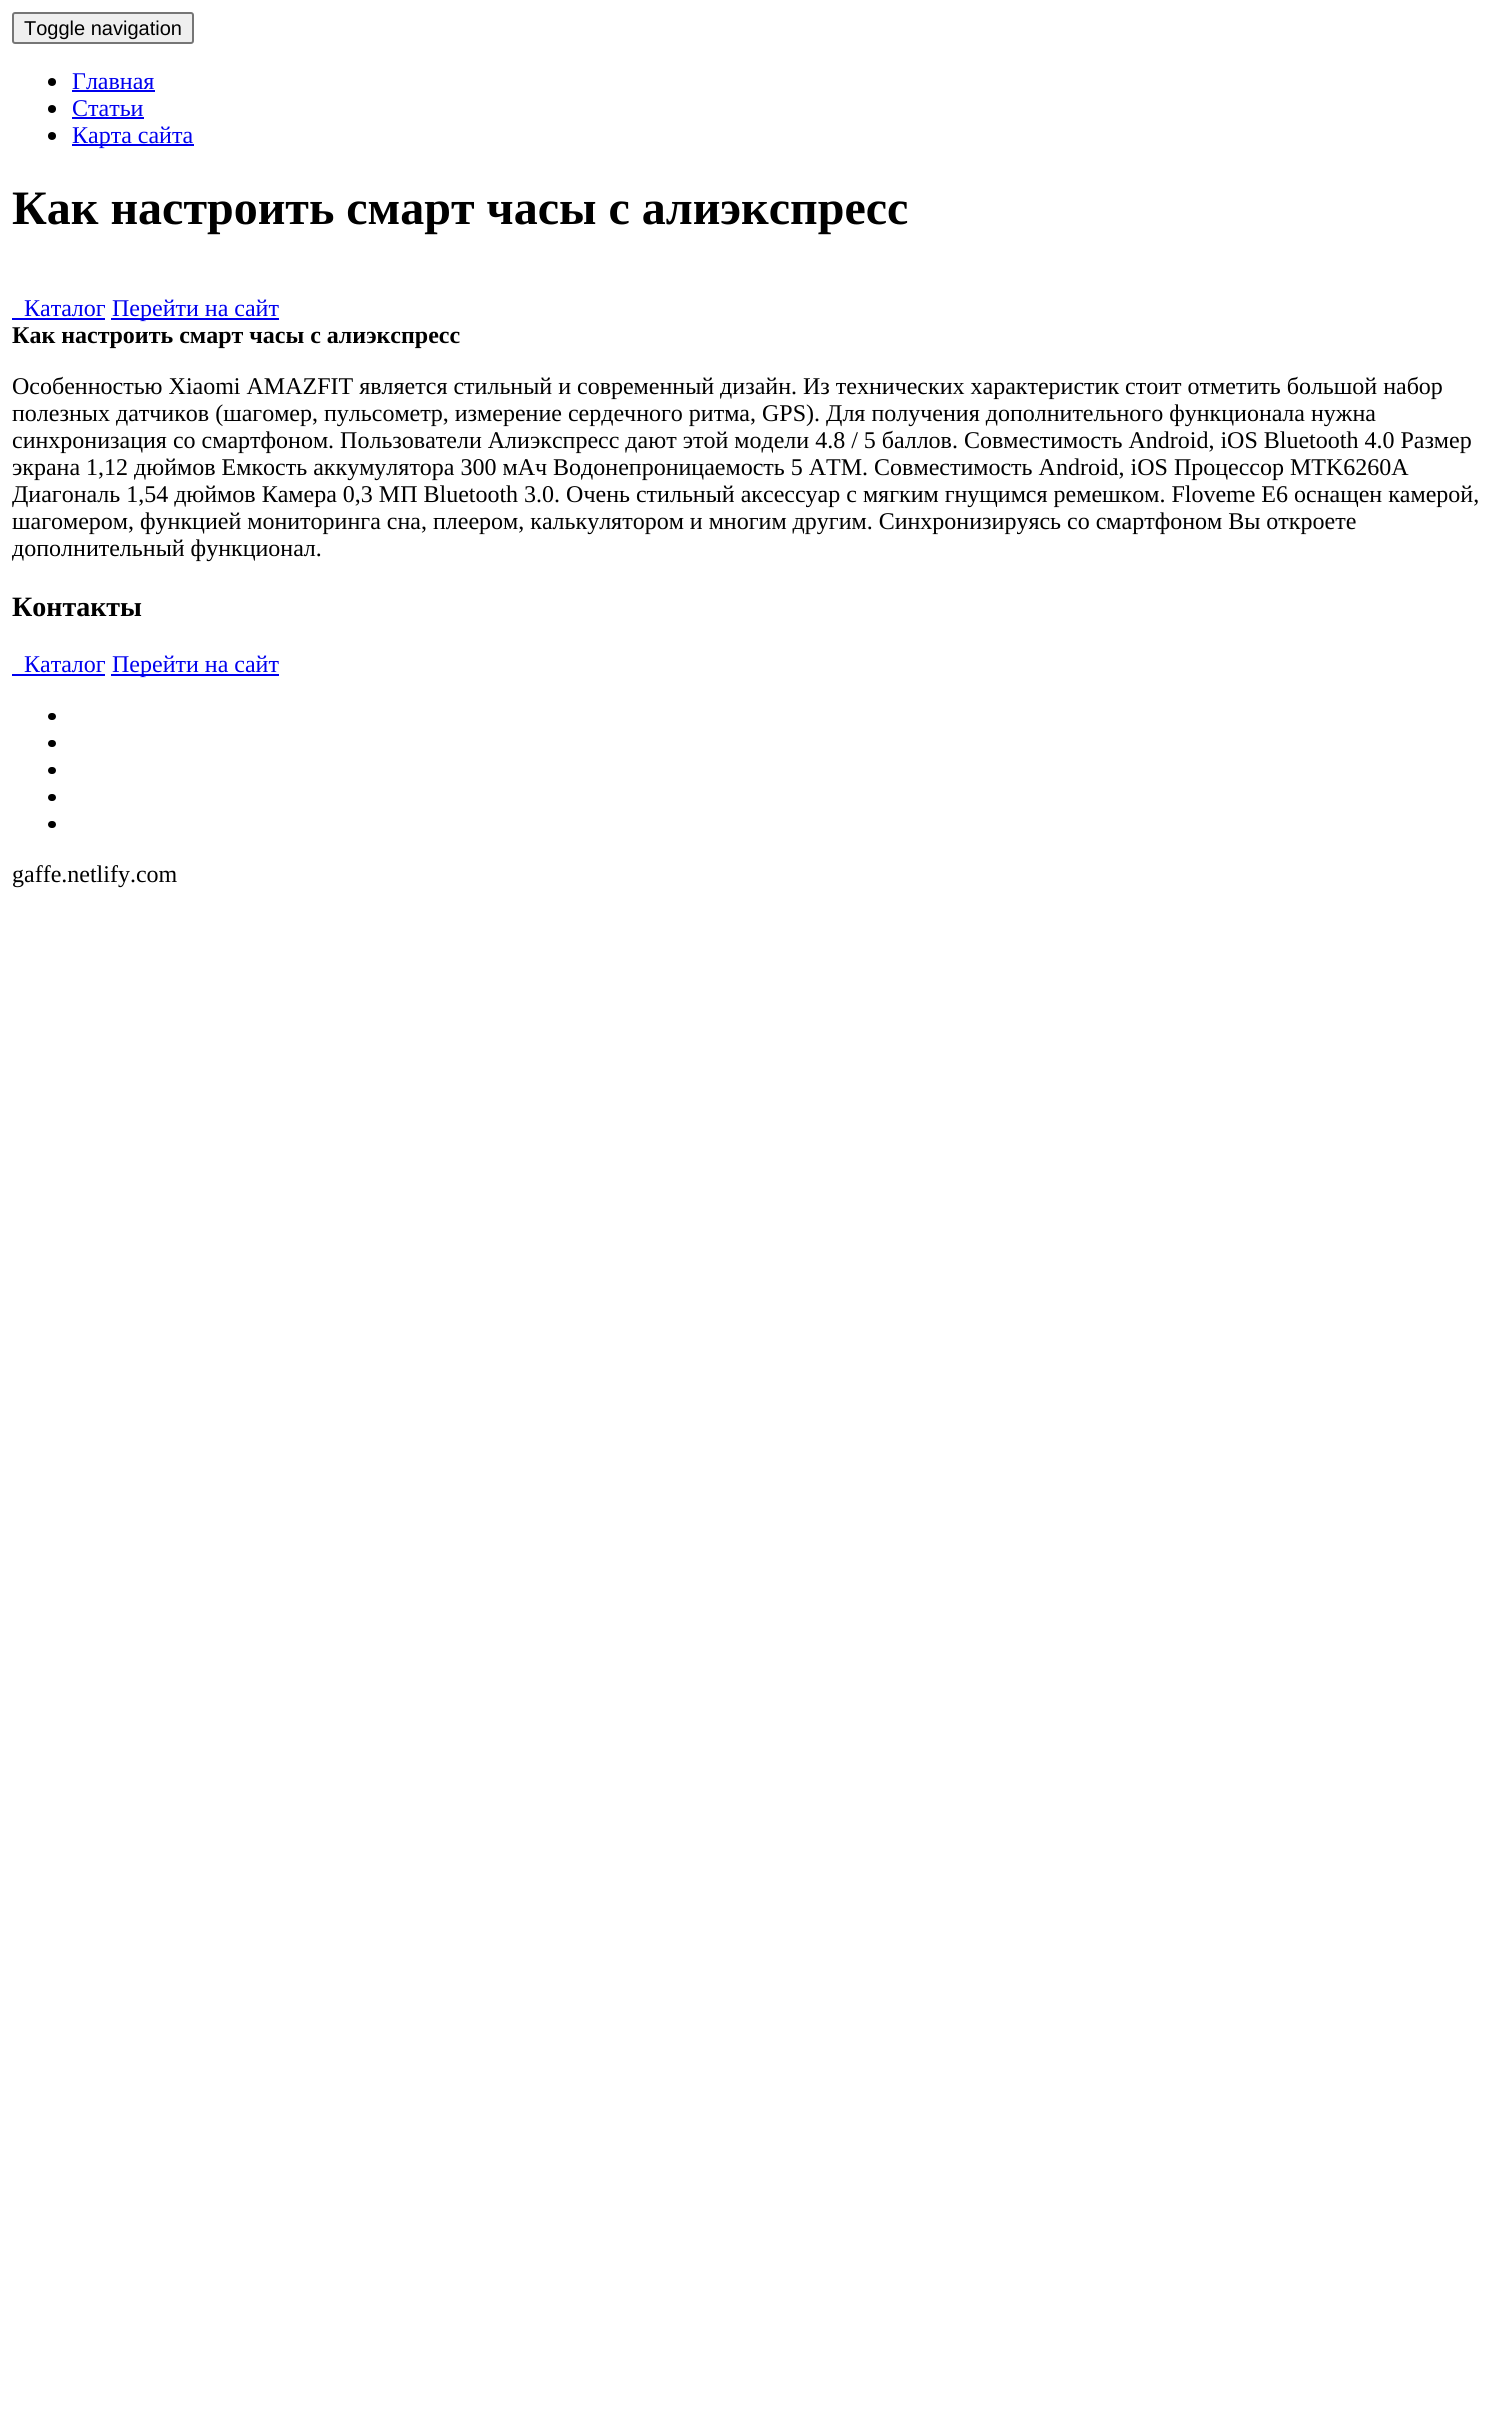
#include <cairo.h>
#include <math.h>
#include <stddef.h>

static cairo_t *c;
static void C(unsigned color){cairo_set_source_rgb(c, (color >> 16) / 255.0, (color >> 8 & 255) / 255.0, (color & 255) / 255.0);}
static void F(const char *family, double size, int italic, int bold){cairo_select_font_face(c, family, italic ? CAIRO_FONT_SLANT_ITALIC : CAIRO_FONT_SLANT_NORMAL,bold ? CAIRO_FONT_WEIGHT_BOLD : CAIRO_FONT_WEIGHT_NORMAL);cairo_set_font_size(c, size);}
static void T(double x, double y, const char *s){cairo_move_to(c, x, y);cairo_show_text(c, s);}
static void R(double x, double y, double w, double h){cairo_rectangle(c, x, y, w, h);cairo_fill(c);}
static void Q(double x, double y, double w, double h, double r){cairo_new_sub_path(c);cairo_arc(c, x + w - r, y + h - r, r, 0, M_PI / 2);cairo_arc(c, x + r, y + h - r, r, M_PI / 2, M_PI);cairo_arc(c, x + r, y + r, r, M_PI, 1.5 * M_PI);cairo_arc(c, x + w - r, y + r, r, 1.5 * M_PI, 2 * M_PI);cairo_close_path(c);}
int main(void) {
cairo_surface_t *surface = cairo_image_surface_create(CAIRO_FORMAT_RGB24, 1505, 2428);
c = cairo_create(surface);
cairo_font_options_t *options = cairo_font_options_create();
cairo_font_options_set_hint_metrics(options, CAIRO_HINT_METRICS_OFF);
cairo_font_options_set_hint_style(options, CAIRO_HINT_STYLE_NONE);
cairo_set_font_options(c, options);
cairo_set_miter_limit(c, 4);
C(0xffffff);
cairo_paint(c);
C(0xefefef);
Q(13,13,180,30,2);
cairo_fill_preserve(c);
C(0x767676);
cairo_stroke(c);
F("Liberation Sans",20,0,0);
C(0x000000);
T(24,35,"Toggle navigation");
cairo_new_path(c);
cairo_arc(c,52,82,4,0,2 * M_PI);
cairo_fill(c);
F("Liberation Serif",24,0,0);
C(0x0000ee);
T(72,89,"Главная");
R(72,90,83,2);
C(0x000000);
cairo_new_path(c);
cairo_arc(c,52,109,4,0,2 * M_PI);
cairo_fill(c);
C(0x0000ee);
T(72,116,"Статьи");
R(72,117,72,2);
C(0x000000);
cairo_new_path(c);
cairo_arc(c,52,136,4,0,2 * M_PI);
cairo_fill(c);
C(0x0000ee);
R(72,144,122,2);
T(72,143,"Карта сайта");
F("Liberation Serif",48,0,1);
C(0x000000);
T(12,224,"Как настроить смарт часы с алиэкспресс");
F("Liberation Serif",24,0,0);
C(0x0000ee);
T(24,316,"Каталог");
R(12,318,93,2);
R(111,318,168,2);
T(112,316,"Перейти на сайт");
F("Liberation Serif",24,0,1);
C(0x000000);
T(12,343,"Как настроить смарт часы с алиэкспресс");
F("Liberation Serif",24,0,0);
T(12,394,"Особенностью Xiaomi AMAZFIT является стильный и современный дизайн. Из технических характеристик стоит отметить большой набор");
T(12,421,"полезных датчиков (шагомер, пульсометр, измерение сердечного ритма, GPS). Для получения дополнительного функционала нужна");
T(12,448,"синхронизация со смартфоном. Пользователи Алиэкспресс дают этой модели 4.8 / 5 баллов. Совместимость Android, iOS Bluetooth 4.0 Размер");
T(12,475,"экрана 1,12 дюймов Емкость аккумулятора 300 мАч Водонепроницаемость 5 АТМ. Совместимость Android, iOS Процессор MTK6260A");
T(12,502,"Диагональ 1,54 дюймов Камера 0,3 МП Bluetooth 3.0. Очень стильный аксессуар с мягким гнущимся ремешком. Floveme E6 оснащен камерой,");
T(12,529,"шагомером, функцией мониторинга сна, плеером, калькулятором и многим другим. Синхронизируясь со смартфоном Вы откроете");
T(12,556,"дополнительный функционал.");
F("Liberation Serif",28,0,1);
T(12,616,"Контакты");
F("Liberation Serif",24,0,0);
C(0x0000ee);
T(24,672,"Каталог");
R(12,674,93,2);
R(111,674,168,2);
T(112,672,"Перейти на сайт");
C(0x000000);
Q(48,713,8,7,3.5);
cairo_fill(c);
Q(48,740,8,7,3.5);
cairo_fill(c);
Q(48,767,8,7,3.5);
cairo_fill(c);
Q(48,794,8,7,3.5);
cairo_fill(c);
Q(48,821,8,7,3.5);
cairo_fill(c);
T(12,882,"gaffe.netlify.com");
cairo_surface_write_to_png(surface, "o.png");
cairo_font_options_destroy(options);
cairo_destroy(c);
cairo_surface_destroy(surface);
return 0;
}
